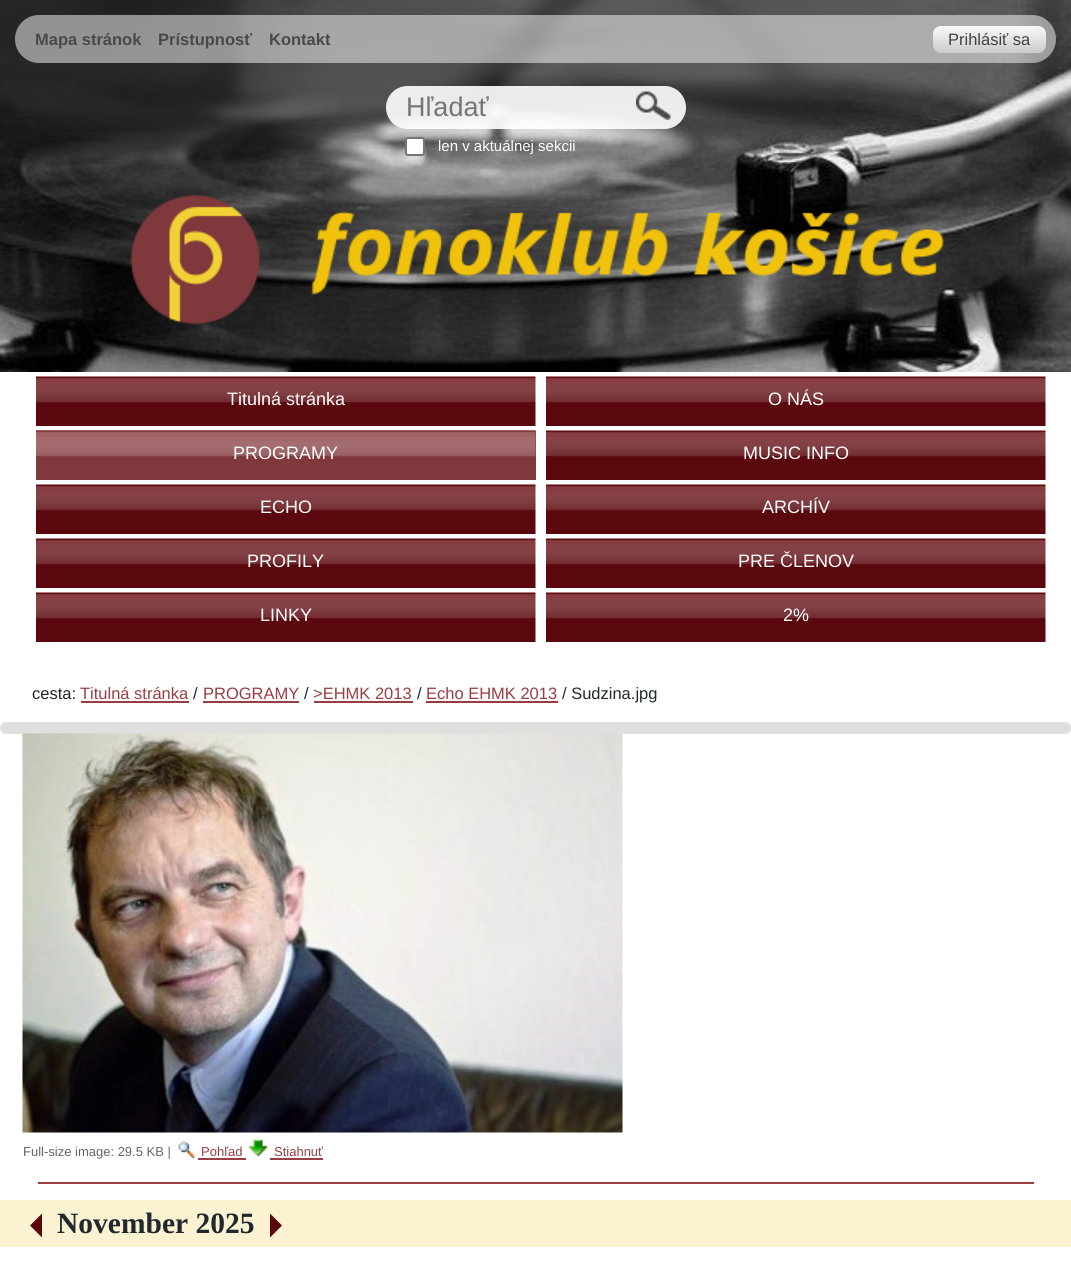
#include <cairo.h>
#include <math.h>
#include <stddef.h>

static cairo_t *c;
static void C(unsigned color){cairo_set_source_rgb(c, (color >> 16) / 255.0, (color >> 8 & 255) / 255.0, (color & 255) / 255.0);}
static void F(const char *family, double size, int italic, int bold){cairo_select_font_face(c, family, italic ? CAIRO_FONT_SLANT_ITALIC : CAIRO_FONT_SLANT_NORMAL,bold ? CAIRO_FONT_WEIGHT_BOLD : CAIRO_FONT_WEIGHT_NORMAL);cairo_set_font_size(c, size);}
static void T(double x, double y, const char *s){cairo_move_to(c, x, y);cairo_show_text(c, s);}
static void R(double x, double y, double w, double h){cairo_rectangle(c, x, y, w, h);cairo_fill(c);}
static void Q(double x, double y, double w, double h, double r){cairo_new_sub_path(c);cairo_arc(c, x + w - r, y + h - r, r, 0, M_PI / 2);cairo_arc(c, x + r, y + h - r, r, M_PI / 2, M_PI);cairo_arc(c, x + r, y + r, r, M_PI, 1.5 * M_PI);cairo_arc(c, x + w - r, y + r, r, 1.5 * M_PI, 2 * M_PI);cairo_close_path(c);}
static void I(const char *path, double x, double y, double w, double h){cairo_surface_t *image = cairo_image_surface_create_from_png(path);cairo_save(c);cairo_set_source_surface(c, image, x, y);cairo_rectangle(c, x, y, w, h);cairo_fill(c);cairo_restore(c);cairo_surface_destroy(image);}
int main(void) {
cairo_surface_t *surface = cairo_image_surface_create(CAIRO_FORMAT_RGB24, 1071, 1275);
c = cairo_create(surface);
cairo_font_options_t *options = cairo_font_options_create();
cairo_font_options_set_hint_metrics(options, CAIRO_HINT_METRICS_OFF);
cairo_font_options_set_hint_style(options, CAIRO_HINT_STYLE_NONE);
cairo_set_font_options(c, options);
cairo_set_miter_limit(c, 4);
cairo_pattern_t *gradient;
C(0xffffff);
cairo_paint(c);
I("1.png",0,0,1071,372);
cairo_set_source_rgba(c,1,1,1,0.5);
Q(15,15,1041,48,24);
cairo_fill(c);
F("Liberation Sans",16.5,0,1);
C(0x4a4949);
T(35,45,"Mapa stránok");
T(158,45,"Prístupnosť");
T(269,45,"Kontakt");
gradient = cairo_pattern_create_linear(989,25,989,53);
cairo_pattern_add_color_stop_rgba(gradient,0,0.984,0.984,0.984,1);
cairo_pattern_add_color_stop_rgba(gradient,1,0.796,0.796,0.796,1);
cairo_set_source(c,gradient);
cairo_pattern_destroy(gradient);
Q(933,26,113,27,8);
cairo_fill(c);
F("Liberation Sans",16.5,0,0);
C(0x424242);
T(948,45,"Prihlásiť sa");
cairo_set_source_rgba(c,1,1,1,0.9);
Q(386,86,300,43,21.5);
cairo_fill(c);
F("Liberation Sans",27,0,0);
C(0x757575);
T(406,116,"Hľadať");
I("2.png",636,91,35,29);
C(0xffffff);
Q(406,138,18,17,2);
cairo_fill_preserve(c);
C(0x767676);
cairo_stroke(c);
F("Liberation Sans",15,0,0);
C(0xffffff);
T(438,151,"len v aktuálnej sekcii");
I("3.png",130,194,814,131);
I("4.png",36,376,500,50);
F("Liberation Sans",18,0,0);
T(227,405,"Titulná stránka");
I("4.png",546,376,500,50);
T(768,405,"O NÁS");
I("5.png",36,430,500,1);
C(0x7f383c);
R(36,431,500,49);
I("6.png",36,430,500,27);
C(0xffffff);
T(233,459,"PROGRAMY");
I("4.png",546,430,500,50);
T(743,459,"MUSIC INFO");
I("4.png",36,484,500,50);
T(260,513,"ECHO");
I("4.png",546,484,500,50);
T(762,513,"ARCHÍV");
I("4.png",36,538,500,50);
T(247,567,"PROFILY");
I("4.png",546,538,500,50);
T(738,567,"PRE ČLENOV");
I("4.png",36,592,500,50);
T(260,621,"LINKY");
I("4.png",546,592,500,50);
T(783,621,"2%");
F("Liberation Sans",16.5,0,0);
C(0x1f282c);
T(32,699,"cesta:");
C(0x9a3d42);
T(80,699,"Titulná stránka");
R(81,701,108,2);
C(0x1f282c);
T(193,699,"/");
C(0x9a3d42);
T(203,699,"PROGRAMY");
R(203,701,96,2);
C(0x1f282c);
T(304,699,"/");
C(0x9a3d42);
T(313,699,">EHMK 2013");
R(314,701,99,2);
C(0x1f282c);
T(417,699,"/");
C(0x9a3d42);
T(426,699,"Echo EHMK 2013");
R(426,701,132,2);
C(0x1f282c);
T(562,699,"/ Sudzina.jpg");
C(0xdfdfdf);
Q(0,722,1071,12,6);
cairo_fill(c);
I("7.png",22,733,601,400);
F("Liberation Sans",13,0,0);
C(0x666666);
T(23,1156,"Full-size image: 29.5 KB |");
I("8.png",178,1141,18,18);
C(0x9a3d42);
T(201,1156,"Pohľad");
R(198,1158,48,2);
I("9.png",248,1139,20,18);
T(274,1156,"Stiahnuť");
R(270,1158,53,2);
R(38,1182,996,2);
C(0xfbf2d1);
R(0,1200,1071,47);
C(0x5a080d);
cairo_new_path(c);
cairo_move_to(c,42,1213.5);
cairo_line_to(c,42,1237.5);
cairo_line_to(c,30,1225.5);
cairo_close_path(c);
cairo_fill(c);
F("Liberation Serif",29.5,0,1);
C(0x1f282c);
T(57,1233,"November 2025");
C(0x5a080d);
cairo_new_path(c);
cairo_move_to(c,270,1237.5);
cairo_line_to(c,270,1213.5);
cairo_line_to(c,282,1225.5);
cairo_close_path(c);
cairo_fill(c);
cairo_surface_write_to_png(surface, "o.png");
cairo_font_options_destroy(options);
cairo_destroy(c);
cairo_surface_destroy(surface);
return 0;
}
